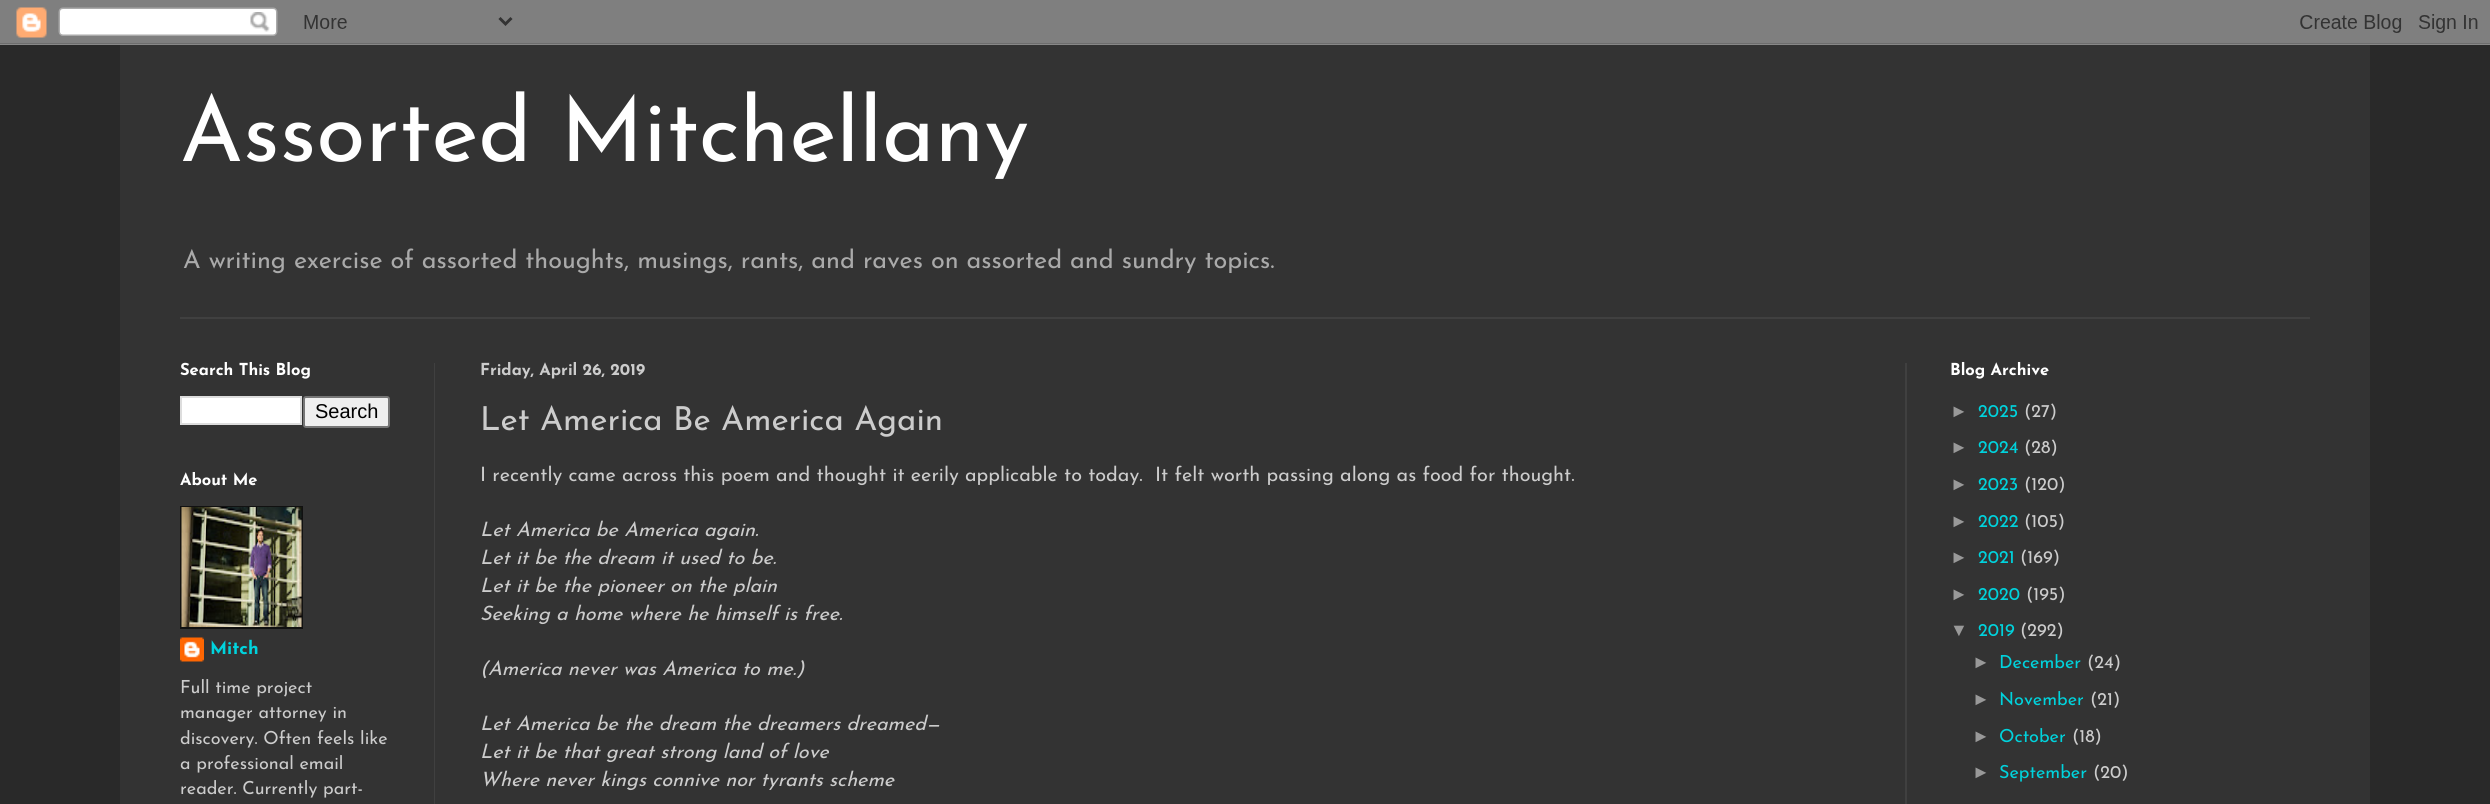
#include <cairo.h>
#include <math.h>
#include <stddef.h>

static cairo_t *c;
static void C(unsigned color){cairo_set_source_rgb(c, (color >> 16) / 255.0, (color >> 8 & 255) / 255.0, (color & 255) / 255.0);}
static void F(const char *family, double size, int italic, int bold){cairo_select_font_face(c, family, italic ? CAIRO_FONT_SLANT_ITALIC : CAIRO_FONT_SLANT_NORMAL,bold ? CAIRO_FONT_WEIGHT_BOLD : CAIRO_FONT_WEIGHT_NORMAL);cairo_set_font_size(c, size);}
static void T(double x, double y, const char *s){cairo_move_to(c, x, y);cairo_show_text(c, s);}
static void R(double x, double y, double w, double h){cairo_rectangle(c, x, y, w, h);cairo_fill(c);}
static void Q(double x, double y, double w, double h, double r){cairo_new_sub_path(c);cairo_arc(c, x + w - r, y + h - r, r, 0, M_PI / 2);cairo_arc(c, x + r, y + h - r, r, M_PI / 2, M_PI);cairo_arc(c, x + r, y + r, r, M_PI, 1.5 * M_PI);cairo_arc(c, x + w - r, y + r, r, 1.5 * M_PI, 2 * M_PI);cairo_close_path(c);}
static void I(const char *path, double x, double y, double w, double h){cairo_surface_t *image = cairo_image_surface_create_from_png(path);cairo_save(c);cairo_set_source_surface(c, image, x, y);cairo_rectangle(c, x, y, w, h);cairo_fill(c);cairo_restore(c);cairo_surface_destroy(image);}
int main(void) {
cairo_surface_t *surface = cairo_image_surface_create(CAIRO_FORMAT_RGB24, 2490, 804);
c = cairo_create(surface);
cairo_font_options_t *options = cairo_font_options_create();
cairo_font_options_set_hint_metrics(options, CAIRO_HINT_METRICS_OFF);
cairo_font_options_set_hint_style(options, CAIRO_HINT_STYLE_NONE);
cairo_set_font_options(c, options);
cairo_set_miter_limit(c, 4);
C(0x292929);
cairo_paint(c);
I("1.png",0,0,2490,45);
C(0x333333);
R(120,45,2250,759);
F("Josefin Sans",90,0,0);
C(0xffffff);
T(180,161,"Assorted Mitchellany");
F("Josefin Sans",25.2,0,0);
C(0xaaaaaa);
T(183,268,"A writing exercise of assorted thoughts, musings, rants, and raves on assorted and sundry topics.");
C(0x404040);
R(180,317,2130,2);
F("Josefin Sans",16.5,0,1);
C(0xffffff);
T(180,375,"Search This Blog");
cairo_rectangle(c,181,397,120,27);
cairo_fill_preserve(c);
C(0xdddddd);
cairo_stroke(c);
C(0xefefef);
Q(304,397,85,30,2);
cairo_fill_preserve(c);
C(0x767676);
cairo_stroke(c);
F("Liberation Sans",20,0,0);
C(0x000000);
T(315,418,"Search");
F("Josefin Sans",16.5,0,1);
C(0xffffff);
T(180,485,"About Me");
C(0x111111);
R(180,506,123,123);
I("2.png",181,507,121,120);
I("3.png",180,637,24,25);
F("Josefin Sans",18,0,1);
C(0x00d3dd);
T(210,654,"Mitch");
F("Josefin Sans",18,0,0);
C(0xcccccc);
T(180,693,"Full time project");
T(180,718,"manager attorney in");
T(180,744,"discovery. Often feels like");
T(180,769,"a professional email");
T(180,794,"reader. Currently part-");
F("Josefin Sans",16.5,0,1);
T(480,375,"Friday, April 26, 2019");
F("Josefin Sans",33,0,0);
T(480,430,"Let America Be America Again");
F("Josefin Sans",19.8,0,0);
T(480,481,"I recently came across this poem and thought it eerily applicable to today.  It felt worth passing along as food for thought.");
F("Josefin Sans",19.8,1,0);
T(480,536,"Let America be America again.");
T(480,564,"Let it be the dream it used to be.");
T(480,592,"Let it be the pioneer on the plain");
T(480,620,"Seeking a home where he himself is free.");
T(480,675,"(America never was America to me.)");
T(480,730,"Let America be the dream the dreamers dreamed—");
T(480,758,"Let it be that great strong land of love");
T(480,786,"Where never kings connive nor tyrants scheme");
F("Josefin Sans",16.5,0,1);
C(0xffffff);
T(1950,375,"Blog Archive");
F("Liberation Sans",18,0,0);
C(0x999999);
T(1950,417,"►");
F("Josefin Sans",18,0,0);
C(0x00d3dd);
T(1978,417,"2025");
C(0xcccccc);
T(2024,417,"(27)");
F("Liberation Sans",18,0,0);
C(0x999999);
T(1950,453,"►");
F("Josefin Sans",18,0,0);
C(0x00d3dd);
T(1978,453,"2024");
C(0xcccccc);
T(2024,453,"(28)");
F("Liberation Sans",18,0,0);
C(0x999999);
T(1950,490,"►");
F("Josefin Sans",18,0,0);
C(0x00d3dd);
T(1978,490,"2023");
C(0xcccccc);
T(2024,490,"(120)");
F("Liberation Sans",18,0,0);
C(0x999999);
T(1950,527,"►");
F("Josefin Sans",18,0,0);
C(0x00d3dd);
T(1978,527,"2022");
C(0xcccccc);
T(2024,527,"(105)");
F("Liberation Sans",18,0,0);
C(0x999999);
T(1950,563,"►");
F("Josefin Sans",18,0,0);
C(0x00d3dd);
T(1978,563,"2021");
C(0xcccccc);
T(2020,563,"(169)");
F("Liberation Sans",18,0,0);
C(0x999999);
T(1950,600,"►");
F("Josefin Sans",18,0,0);
C(0x00d3dd);
T(1978,600,"2020");
C(0xcccccc);
T(2026,600,"(195)");
F("Liberation Sans",18,0,0);
C(0x999999);
T(1950,636,"▼");
F("Josefin Sans",18,0,0);
C(0x00d3dd);
T(1978,636,"2019");
C(0xcccccc);
T(2020,636,"(292)");
F("Liberation Sans",18,0,0);
C(0x999999);
T(1972,668,"►");
F("Josefin Sans",18,0,0);
C(0x00d3dd);
T(1999,668,"December");
C(0xcccccc);
T(2087,668,"(24)");
F("Liberation Sans",18,0,0);
C(0x999999);
T(1972,705,"►");
F("Josefin Sans",18,0,0);
C(0x00d3dd);
T(1999,705,"November");
C(0xcccccc);
T(2090,705,"(21)");
F("Liberation Sans",18,0,0);
C(0x999999);
T(1972,742,"►");
F("Josefin Sans",18,0,0);
C(0x00d3dd);
T(1999,742,"October");
C(0xcccccc);
T(2072,742,"(18)");
F("Liberation Sans",18,0,0);
C(0x999999);
T(1972,778,"►");
F("Josefin Sans",18,0,0);
C(0x00d3dd);
T(1999,778,"September");
C(0xcccccc);
T(2093,778,"(20)");
C(0x404040);
R(434,363,1,441);
R(1905,363,2,441);
cairo_surface_write_to_png(surface, "o.png");
cairo_font_options_destroy(options);
cairo_destroy(c);
cairo_surface_destroy(surface);
return 0;
}
